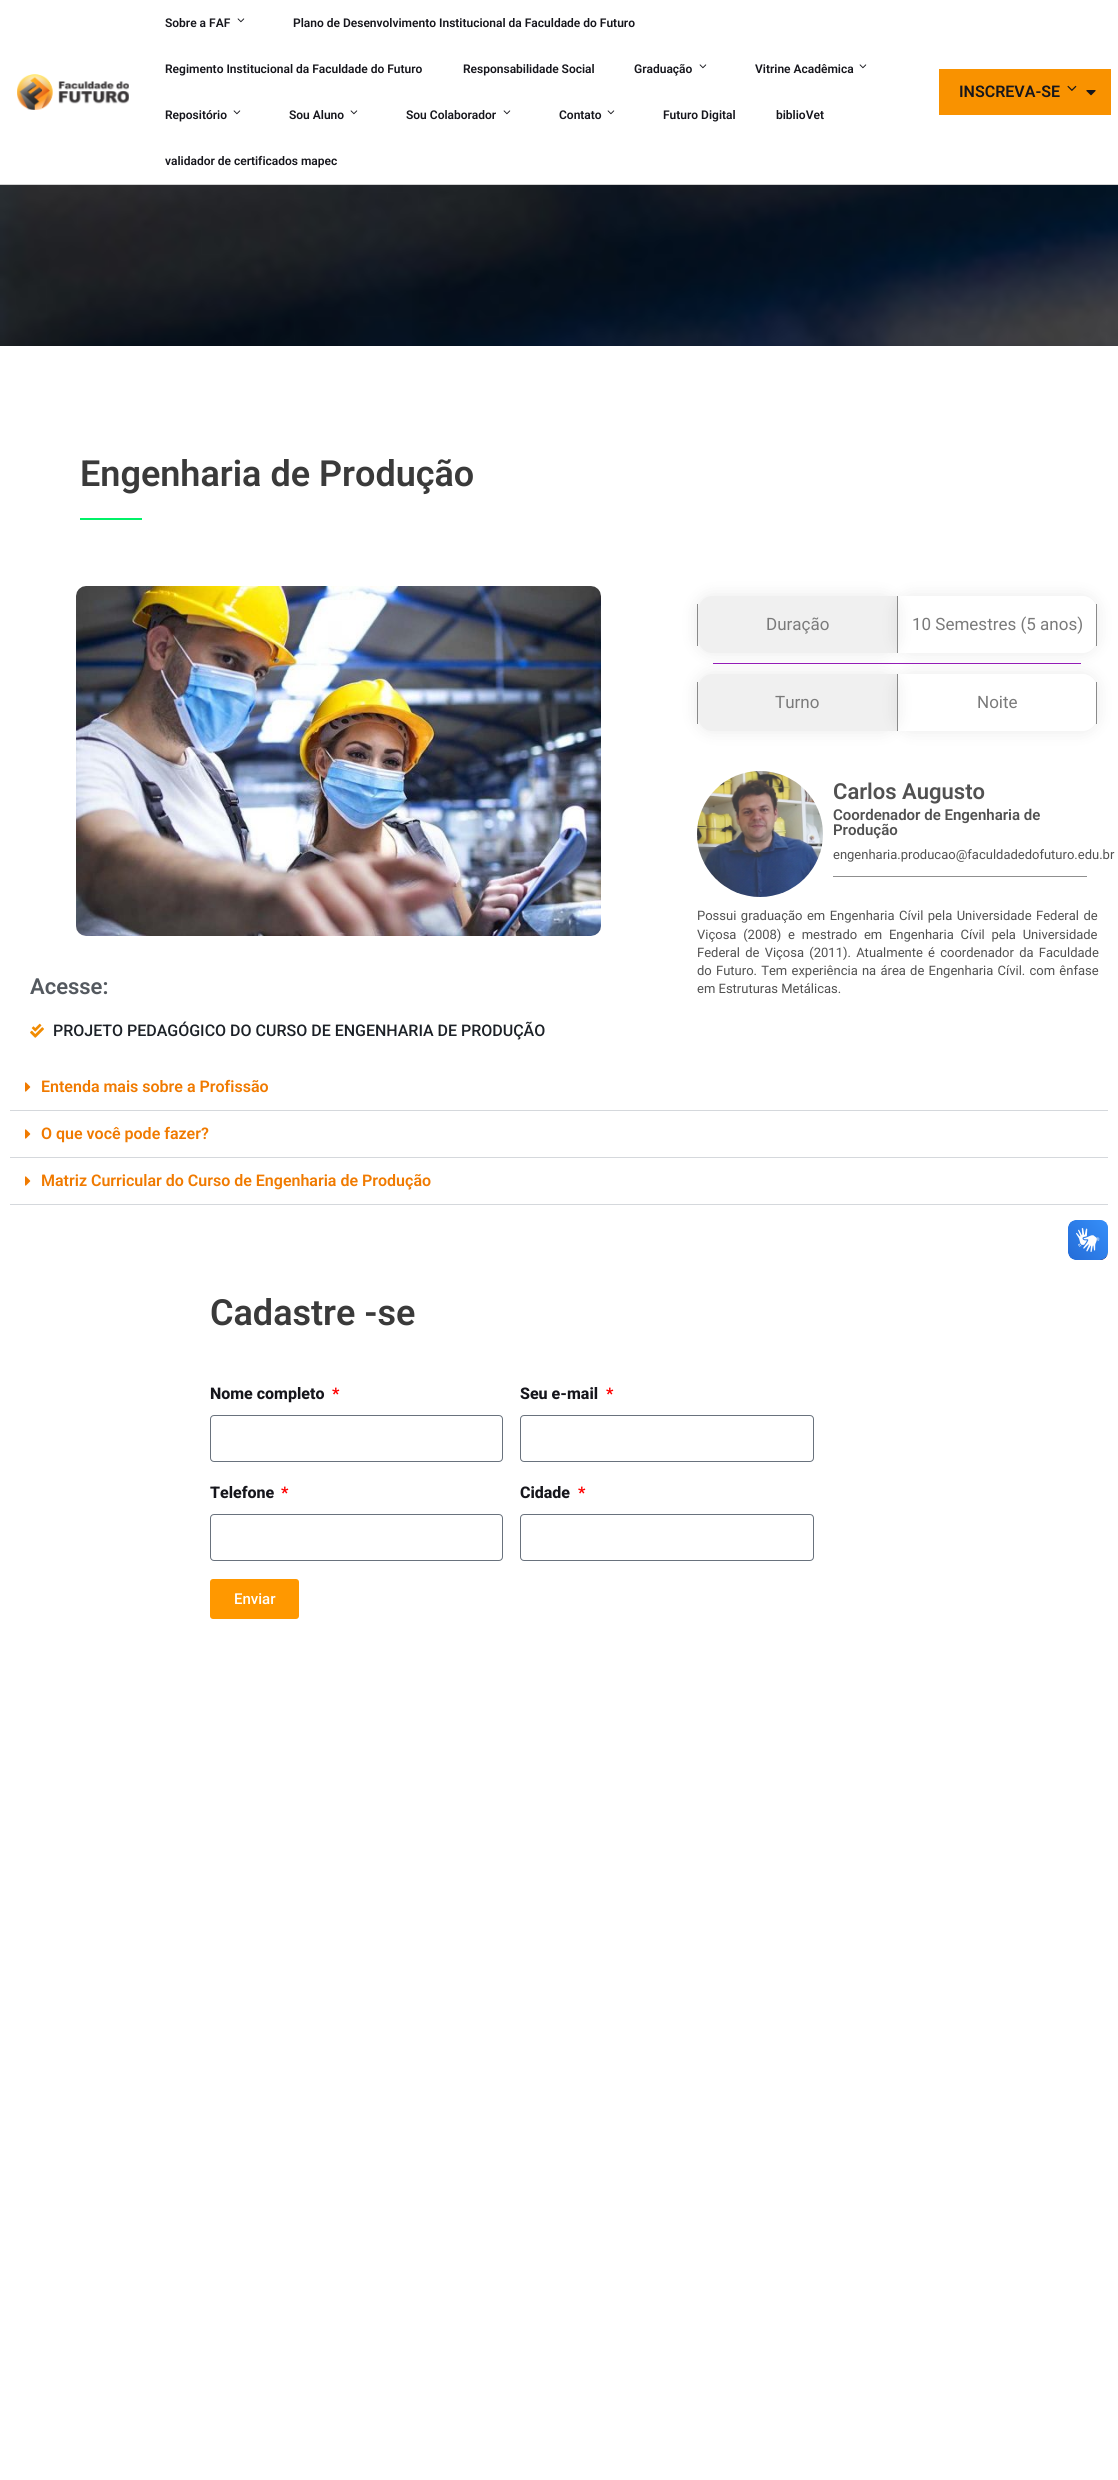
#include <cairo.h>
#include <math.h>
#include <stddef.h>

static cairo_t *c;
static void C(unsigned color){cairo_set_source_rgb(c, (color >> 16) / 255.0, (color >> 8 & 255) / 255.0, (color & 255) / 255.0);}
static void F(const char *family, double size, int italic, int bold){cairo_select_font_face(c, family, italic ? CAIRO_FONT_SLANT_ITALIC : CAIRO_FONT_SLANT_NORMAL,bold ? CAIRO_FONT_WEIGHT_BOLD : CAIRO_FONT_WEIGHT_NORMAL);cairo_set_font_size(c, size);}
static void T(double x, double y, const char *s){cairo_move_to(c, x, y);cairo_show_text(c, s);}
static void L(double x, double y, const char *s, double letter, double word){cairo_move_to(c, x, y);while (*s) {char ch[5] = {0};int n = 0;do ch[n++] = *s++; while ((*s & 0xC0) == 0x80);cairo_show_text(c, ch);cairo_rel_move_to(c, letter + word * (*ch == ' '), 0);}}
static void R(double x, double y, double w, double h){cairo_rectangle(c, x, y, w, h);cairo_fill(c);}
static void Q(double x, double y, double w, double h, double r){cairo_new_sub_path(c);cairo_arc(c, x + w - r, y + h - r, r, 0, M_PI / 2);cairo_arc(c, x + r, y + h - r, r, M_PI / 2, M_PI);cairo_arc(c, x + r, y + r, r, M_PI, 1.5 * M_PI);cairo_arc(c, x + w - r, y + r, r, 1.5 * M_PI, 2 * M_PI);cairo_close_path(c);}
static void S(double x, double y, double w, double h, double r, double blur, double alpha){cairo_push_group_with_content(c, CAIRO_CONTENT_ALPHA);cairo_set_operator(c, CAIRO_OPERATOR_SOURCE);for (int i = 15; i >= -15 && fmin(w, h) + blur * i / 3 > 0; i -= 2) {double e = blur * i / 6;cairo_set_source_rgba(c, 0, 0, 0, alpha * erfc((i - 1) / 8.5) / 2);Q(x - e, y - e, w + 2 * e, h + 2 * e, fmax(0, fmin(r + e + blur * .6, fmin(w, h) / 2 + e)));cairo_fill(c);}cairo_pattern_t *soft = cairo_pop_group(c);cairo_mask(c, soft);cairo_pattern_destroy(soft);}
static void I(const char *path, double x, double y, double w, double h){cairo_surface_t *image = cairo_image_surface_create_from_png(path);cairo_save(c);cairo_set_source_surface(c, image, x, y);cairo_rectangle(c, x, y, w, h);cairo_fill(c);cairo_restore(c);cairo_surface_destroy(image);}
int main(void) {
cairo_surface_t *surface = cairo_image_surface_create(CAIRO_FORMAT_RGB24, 1118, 2480);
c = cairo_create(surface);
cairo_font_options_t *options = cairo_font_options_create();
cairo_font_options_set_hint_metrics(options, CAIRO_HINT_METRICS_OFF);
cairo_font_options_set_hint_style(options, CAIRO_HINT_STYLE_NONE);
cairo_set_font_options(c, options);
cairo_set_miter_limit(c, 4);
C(0xffffff);
cairo_paint(c);
C(0xd2d2d2);
R(0,184,1118,1);
I("1.png",17,74,112,36);
F("Roboto SemiBold",12,0,0);
C(0x16161c);
T(165,27,"Sobre a FAF");
I("2.png",237,18,8,5);
T(293,27,"Plano de Desenvolvimento Institucional da Faculdade do Futuro");
T(165,73,"Regimento Institucional da Faculdade do Futuro");
T(463,73,"Responsabilidade Social");
T(634,73,"Graduação");
I("2.png",699,64,8,5);
T(755,73,"Vitrine Acadêmica");
I("2.png",859,64,8,5);
T(165,119,"Repositório");
I("2.png",233,110,8,5);
T(289,119,"Sou Aluno");
I("2.png",350,110,8,5);
T(406,119,"Sou Colaborador");
I("2.png",503,110,8,5);
T(559,119,"Contato");
I("2.png",607,110,8,5);
T(663,119,"Futuro Digital");
T(776,119,"biblioVet");
T(165,165,"validador de certificados mapec");
C(0xf99200);
R(939,69,172,46);
F("Roboto SemiBold",16,0,0);
C(0x16161c);
T(959,97,"INSCREVA-SE");
I("3.png",1067,85,10,6);
I("4.png",1086,90,10,6);
I("5.png",0,185,1118,161);
F("Roboto SemiBold",36,0,0);
C(0x3a3a3a);
T(80,486,"Engenharia de Produção");
C(0x00f267);
R(80,518,62,2);
C(0x000000);
S(698,597,198,55,14,8.5,.1);
C(0xf0f0f0);
cairo_new_path(c);
cairo_move_to(c,712,596);
cairo_line_to(c,897,596);
cairo_line_to(c,897,653);
cairo_line_to(c,712,653);
cairo_curve_to(c,704,653,698,646,698,638);
cairo_line_to(c,698,611);
cairo_curve_to(c,698,603,704,596,712,596);
cairo_close_path(c);
cairo_fill(c);
C(0x8a8a8a);
R(697,604,1,42);
F("Roboto",17,0,0);
C(0x7a7a7a);
T(766,630,"Duração");
cairo_save(c);
cairo_set_fill_rule(c,CAIRO_FILL_RULE_EVEN_ODD);
cairo_new_path(c);
cairo_move_to(c,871,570);
cairo_line_to(c,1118,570);
cairo_line_to(c,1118,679);
cairo_line_to(c,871,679);
cairo_close_path(c);
cairo_move_to(c,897,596);
cairo_line_to(c,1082,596);
cairo_curve_to(c,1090.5,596,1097,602.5,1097,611);
cairo_line_to(c,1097,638);
cairo_curve_to(c,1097,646.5,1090.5,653,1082,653);
cairo_line_to(c,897,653);
cairo_close_path(c);
cairo_clip(c);
C(0x000000);
S(898,597,198,55,14,8.5,.1);
cairo_restore(c);
C(0x8a8a8a);
R(1096,604,1,42);
R(897,596,1,57);
C(0x7a7a7a);
T(912,630,"10 Semestres (5 anos)");
C(0x941cb8);
R(713,663,368,1);
C(0x000000);
S(698,675,198,55,14,8.5,.1);
C(0xf0f0f0);
cairo_new_path(c);
cairo_move_to(c,712,674);
cairo_line_to(c,897,674);
cairo_line_to(c,897,731);
cairo_line_to(c,712,731);
cairo_curve_to(c,704,731,698,724,698,716);
cairo_line_to(c,698,689);
cairo_curve_to(c,698,681,704,674,712,674);
cairo_close_path(c);
cairo_fill(c);
C(0x8a8a8a);
R(697,682,1,42);
C(0x7a7a7a);
T(775,708,"Turno");
cairo_save(c);
cairo_set_fill_rule(c,CAIRO_FILL_RULE_EVEN_ODD);
cairo_new_path(c);
cairo_move_to(c,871,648);
cairo_line_to(c,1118,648);
cairo_line_to(c,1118,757);
cairo_line_to(c,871,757);
cairo_close_path(c);
cairo_move_to(c,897,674);
cairo_line_to(c,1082,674);
cairo_curve_to(c,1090.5,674,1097,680.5,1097,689);
cairo_line_to(c,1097,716);
cairo_curve_to(c,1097,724.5,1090.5,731,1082,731);
cairo_line_to(c,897,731);
cairo_close_path(c);
cairo_clip(c);
C(0x000000);
S(898,675,198,55,14,8.5,.1);
cairo_restore(c);
C(0x8a8a8a);
R(1096,682,1,42);
R(897,674,1,57);
C(0x7a7a7a);
T(977,708,"Noite");
I("6.png",697,771,126,126);
F("Roboto SemiBold",22,0,0);
C(0x515151);
T(833,799,"Carlos Augusto");
F("Roboto SemiBold",15,0,0);
T(833,820,"Coordenador de Engenharia de");
T(833,835,"Produção");
F("Roboto",13,0,0);
T(833,859,"engenharia.producao@faculdadedofuturo.edu.br");
C(0x8f8f8f);
R(833,876,254,1);
C(0x515151);
L(697,920,"Possui graduação em Engenharia Cívil pela Universidade Federal de",0,1.25);
L(697,939,"Viçosa (2008) e mestrado em Engenharia Cívil pela Universidade",0,3.5);
L(697,957,"Federal de Viçosa (2011). Atualmente é coordenador da Faculdade",0,2);
L(697,975,"do Futuro. Tem experiência na área de Engenharia Cívil. com ênfase",0,1);
T(697,993,"em Estruturas Metálicas.");
I("7.png",76,586,525,350);
F("Roboto SemiBold",22,0,0);
C(0x54595f);
T(30,994,"Acesse:");
I("8.png",30,1023,14,15);
F("Roboto Medium",16,0,0);
C(0x1c2127);
T(53,1036,"PROJETO PEDAGÓGICO DO CURSO DE ENGENHARIA DE PRODUÇÃO");
C(0xd5d8dc);
R(10,1110,1098,1);
I("9.png",25,1082,6,10);
F("Roboto SemiBold",16,0,0);
C(0xf07a00);
T(41,1092,"Entenda mais sobre a Profissão");
C(0xd5d8dc);
R(10,1157,1098,1);
I("9.png",25,1129,6,10);
C(0xf07a00);
T(41,1139,"O que você pode fazer?");
C(0xd5d8dc);
R(10,1204,1098,1);
I("9.png",25,1176,6,10);
C(0xf07a00);
T(41,1186,"Matriz Curricular do Curso de Engenharia de Produção");
F("Roboto SemiBold",36,0,0);
C(0x3a3a3a);
T(210,1325,"Cadastre -se");
F("Roboto ExtraBold",16,0,0);
C(0x16161c);
T(210,1399,"Nome completo");
C(0xff0000);
T(332,1399,"*");
Q(210.5,1415.5,292,46,3.5);
C(0x69727d);
cairo_set_line_width(c,1);
cairo_stroke(c);
C(0x16161c);
T(520,1399,"Seu e-mail");
C(0xff0000);
T(606,1399,"*");
Q(520.5,1415.5,293,46,3.5);
C(0x69727d);
cairo_stroke(c);
C(0x16161c);
T(210,1498,"Telefone");
C(0xff0000);
T(281,1498,"*");
Q(210.5,1514.5,292,46,3.5);
C(0x69727d);
cairo_stroke(c);
C(0x16161c);
T(520,1498,"Cidade");
C(0xff0000);
T(578,1498,"*");
Q(520.5,1514.5,293,46,3.5);
C(0x69727d);
cairo_stroke(c);
C(0xff9800);
Q(210,1579,89,40,3);
cairo_fill(c);
F("Roboto Medium",15,0,0);
C(0xffffff);
T(234,1604,"Enviar");
I("10.png",1068,1220,40,40);
I("11.png",1068,1220,40,40);
cairo_surface_write_to_png(surface, "o.png");
cairo_font_options_destroy(options);
cairo_destroy(c);
cairo_surface_destroy(surface);
return 0;
}
